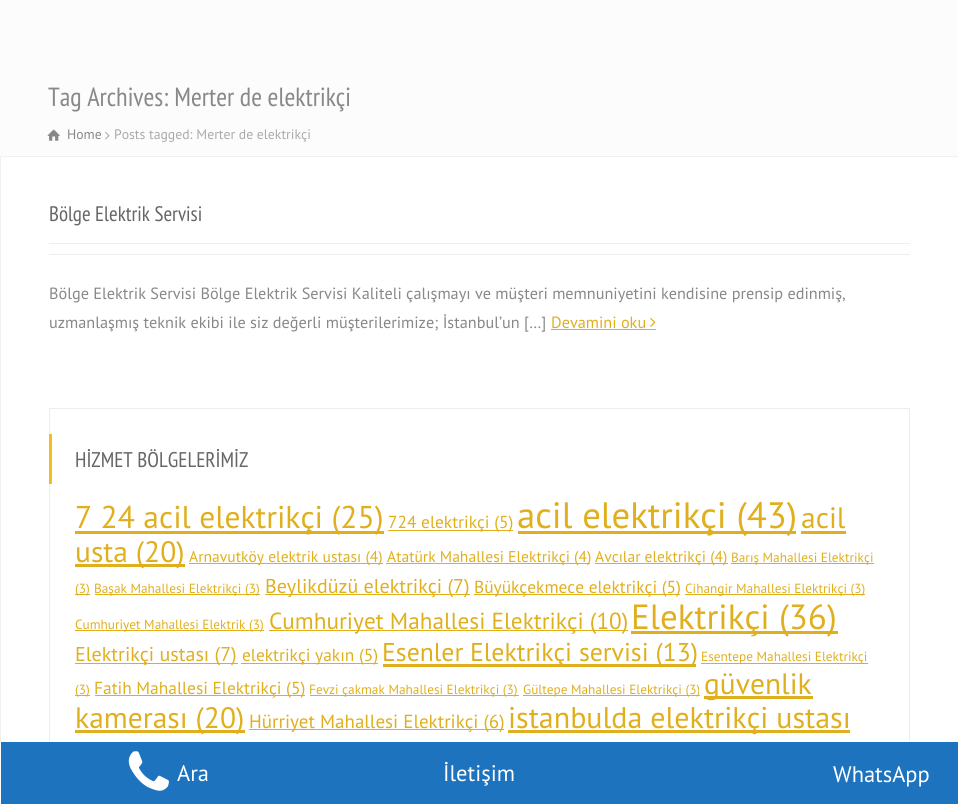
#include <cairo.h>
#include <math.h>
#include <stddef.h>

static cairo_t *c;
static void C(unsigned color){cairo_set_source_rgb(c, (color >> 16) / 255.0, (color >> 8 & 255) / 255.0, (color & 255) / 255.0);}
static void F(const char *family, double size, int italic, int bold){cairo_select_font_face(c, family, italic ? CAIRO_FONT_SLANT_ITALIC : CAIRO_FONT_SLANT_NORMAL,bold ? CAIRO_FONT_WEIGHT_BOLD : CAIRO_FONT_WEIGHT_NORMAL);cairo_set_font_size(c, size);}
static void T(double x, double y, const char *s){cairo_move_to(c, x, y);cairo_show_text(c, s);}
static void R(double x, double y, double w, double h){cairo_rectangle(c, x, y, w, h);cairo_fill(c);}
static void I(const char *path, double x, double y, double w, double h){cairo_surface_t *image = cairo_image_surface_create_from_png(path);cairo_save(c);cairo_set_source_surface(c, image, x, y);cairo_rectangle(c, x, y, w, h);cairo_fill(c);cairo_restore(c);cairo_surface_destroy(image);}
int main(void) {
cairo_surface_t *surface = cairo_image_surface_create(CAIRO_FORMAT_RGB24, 958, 804);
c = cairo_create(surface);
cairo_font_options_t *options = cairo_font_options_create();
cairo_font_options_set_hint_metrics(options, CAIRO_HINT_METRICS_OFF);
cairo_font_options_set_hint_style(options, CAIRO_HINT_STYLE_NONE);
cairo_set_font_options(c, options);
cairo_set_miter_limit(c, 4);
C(0xfcfcfc);
cairo_paint(c);
F("PT Sans Narrow",26.25,0,0);
C(0x888888);
T(48,106,"Tag Archives: Merter de elektrikçi");
I("1.png",47,129,13,12);
F("PT Sans",13.75,0,0);
T(67,139,"Home");
I("2.png",105,132,5,8);
C(0xaaaaaa);
T(114,139,"Posts tagged: Merter de elektrikçi");
C(0xffffff);
R(1,157,957,584);
cairo_rectangle(c,.5,156.5,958,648);
C(0xf0f0f0);
cairo_set_line_width(c,1);
cairo_stroke(c);
C(0xeeeeee);
R(49,254,861,1);
F("PT Sans Narrow",21,0,0);
C(0x666666);
T(49,221,"Bölge Elektrik Servisi");
C(0xeeeeee);
R(49,243,861,1);
F("PT Sans",16.25,0,0);
C(0x888888);
T(49,299,"Bölge Elektrik Servisi Bölge Elektrik Servisi Kaliteli çalışmayı ve müşteri memnuniyetini kendisine prensip edinmiş,");
T(49,328,"uzmanlaşmış teknik ekibi ile siz değerli müşterilerimize; İstanbul’un […]");
C(0xe0af1d);
T(551,328,"Devamini oku");
R(551,329,105,1);
I("3.png",650,317,6,10);
cairo_rectangle(c,49.5,408.5,860,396);
C(0xededed);
cairo_stroke(c);
C(0xf4bf1e);
R(49,434,3,50);
F("PT Sans Narrow",21.25,0,0);
C(0x666666);
T(75,467,"HİZMET BÖLGELERİMİZ");
C(0xe0af1d);
R(75,531,309,3);
F("PT Sans",31.5,0,0);
T(75,528,"7 24 acil elektrikçi (25)");
R(388,530,125,1);
F("PT Sans",17.4,0,0);
T(388,528,"724 elektrikçi (5)");
R(518,531,278,3);
F("PT Sans",36.75,0,0);
T(517,528,"acil elektrikçi (43)");
F("PT Sans",29.5,0,0);
T(801,528,"acil");
R(801,531,45,3);
R(75,564,110,3);
T(75,562,"usta (20)");
R(189,563,194,1);
F("PT Sans",15.6,0,0);
T(189,562,"Arnavutköy elektrik ustası (4)");
R(386,563,204,1);
T(387,562,"Atatürk Mahallesi Elektrikçi (4)");
R(595,563,133,1);
T(595,562,"Avcılar elektrikçi (4)");
R(731,563,143,1);
F("PT Sans",13.3,0,0);
T(731,562,"Barış Mahallesi Elektrikçi");
R(75,594,15,1);
T(75,593,"(3)");
R(95,594,165,1);
T(94,593,"Başak Mahallesi Elektrikçi (3)");
R(265,594,205,1);
F("PT Sans",20,0,0);
T(265,593,"Beylikdüzü elektrikçi (7)");
R(474,594,206,1);
F("PT Sans",17.4,0,0);
T(474,593,"Büyükçekmece elektrikçi (5)");
R(685,594,180,1);
F("PT Sans",13.3,0,0);
T(685,593,"Cihangir Mahallesi Elektrikçi (3)");
R(75,630,189,1);
T(75,629,"Cumhuriyet Mahallesi Elektrik (3)");
R(269,630,359,1);
F("PT Sans",23.25,0,0);
T(269,629,"Cumhuriyet Mahallesi Elektrikçi (10)");
R(631,631,207,3);
F("PT Sans",35,0,0);
T(631,629,"Elektrikçi (36)");
R(75,663,163,1);
F("PT Sans",20,0,0);
T(75,661,"Elektrikçi ustası (7)");
R(241,663,137,1);
F("PT Sans",17.4,0,0);
T(242,661,"elektrikçi yakın (5)");
R(383,664,313,3);
F("PT Sans",25.75,0,0);
T(382,661,"Esenler Elektrikçi servisi (13)");
R(701,663,167,1);
F("PT Sans",13.3,0,0);
T(701,661,"Esentepe Mahallesi Elektrikçi");
R(75,695,15,1);
T(75,694,"(3)");
R(95,695,210,1);
F("PT Sans",17.4,0,0);
T(94,694,"Fatih Mahallesi Elektrikçi (5)");
R(310,695,209,1);
F("PT Sans",13.3,0,0);
T(309,694,"Fevzi çakmak Mahallesi Elektrikçi (3)");
R(523,695,177,1);
T(523,694,"Gültepe Mahallesi Elektrikçi (3)");
R(704,696,109,3);
F("PT Sans",29.5,0,0);
T(704,694,"güvenlik");
R(75,730,170,3);
T(75,728,"kamerası (20)");
R(249,729,255,1);
F("PT Sans",19,0,0);
T(249,728,"Hürriyet Mahallesi Elektrikçi (6)");
R(508,730,342,3);
F("PT Sans",30,0,0);
T(508,728,"istanbulda elektrikçi ustası");
C(0x1e73be);
cairo_rectangle(c,.5,741.5,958,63);
cairo_fill_preserve(c);
C(0xffffff);
cairo_stroke(c);
I("4.png",128,751,41,40);
F("PT Sans",22.5,0,0);
T(177,781,"Ara");
T(443,781,"İletişim");
T(833,782,"WhatsApp");
cairo_surface_write_to_png(surface, "o.png");
cairo_font_options_destroy(options);
cairo_destroy(c);
cairo_surface_destroy(surface);
return 0;
}
